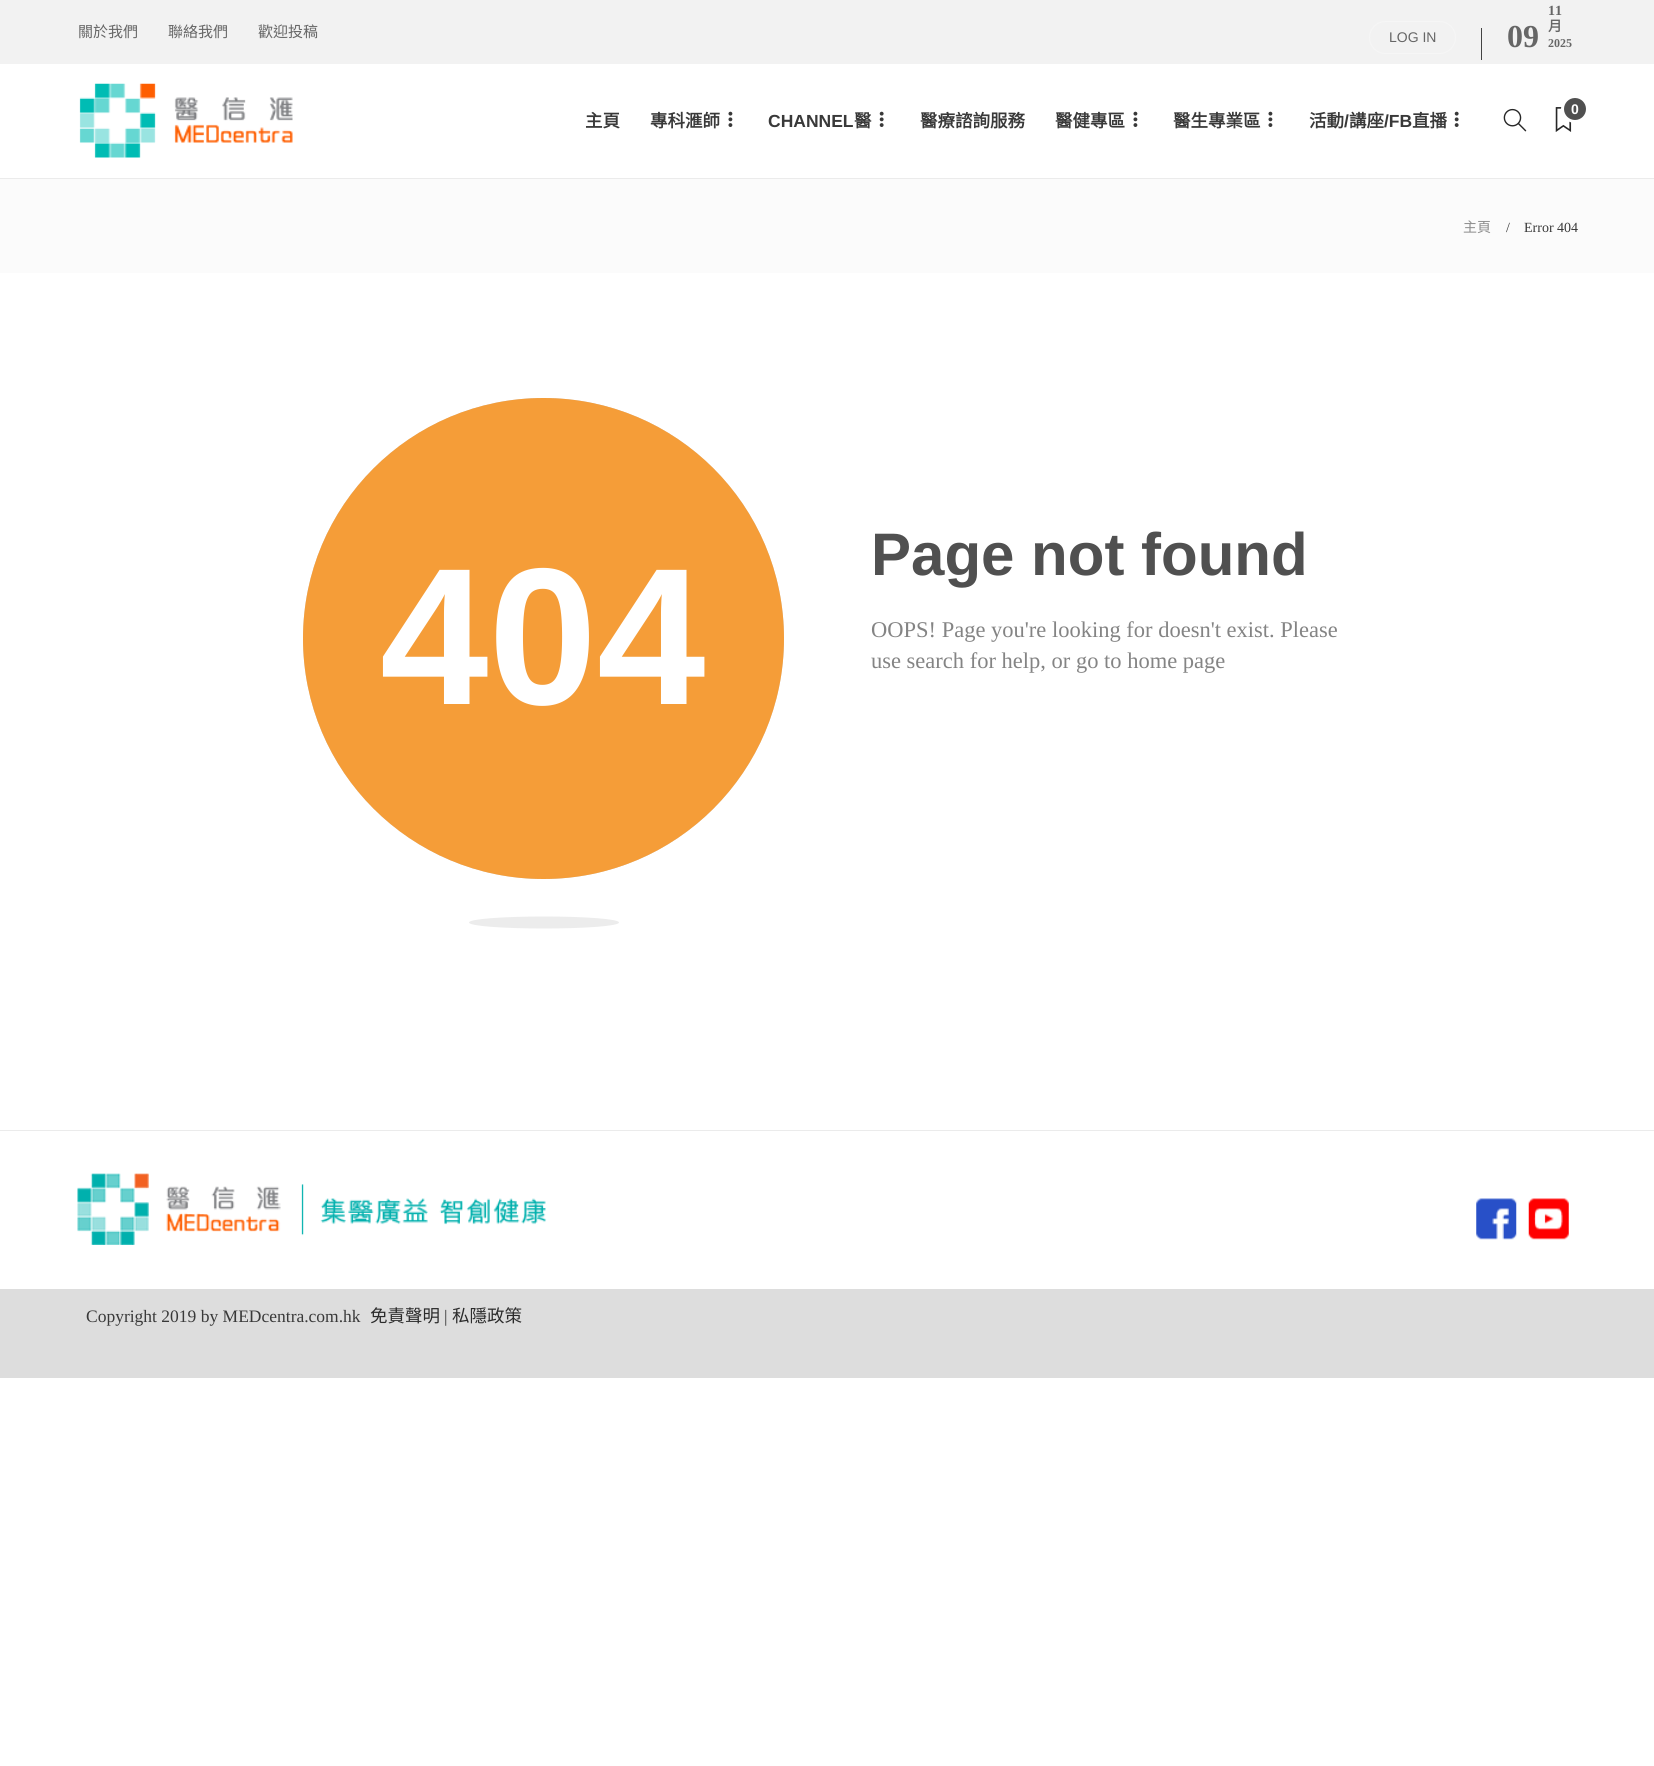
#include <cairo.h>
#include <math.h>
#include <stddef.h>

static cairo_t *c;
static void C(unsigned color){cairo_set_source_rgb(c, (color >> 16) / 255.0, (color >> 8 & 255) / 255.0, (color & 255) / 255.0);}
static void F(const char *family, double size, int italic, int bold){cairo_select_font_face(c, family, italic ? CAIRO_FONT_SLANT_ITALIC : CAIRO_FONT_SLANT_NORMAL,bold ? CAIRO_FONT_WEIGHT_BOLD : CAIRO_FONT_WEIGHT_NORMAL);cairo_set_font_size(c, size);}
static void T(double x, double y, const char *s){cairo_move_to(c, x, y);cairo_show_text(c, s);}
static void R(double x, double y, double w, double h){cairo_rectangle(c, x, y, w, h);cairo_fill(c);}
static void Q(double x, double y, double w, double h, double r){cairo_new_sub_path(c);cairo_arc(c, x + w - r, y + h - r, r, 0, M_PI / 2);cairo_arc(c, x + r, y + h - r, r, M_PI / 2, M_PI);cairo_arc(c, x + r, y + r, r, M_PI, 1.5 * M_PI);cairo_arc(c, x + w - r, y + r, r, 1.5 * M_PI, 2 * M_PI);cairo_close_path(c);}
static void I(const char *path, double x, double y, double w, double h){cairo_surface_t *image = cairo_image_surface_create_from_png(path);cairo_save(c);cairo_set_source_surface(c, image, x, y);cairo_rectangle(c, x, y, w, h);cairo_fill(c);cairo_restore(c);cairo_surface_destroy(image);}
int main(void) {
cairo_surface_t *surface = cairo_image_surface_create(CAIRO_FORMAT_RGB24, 1654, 1766);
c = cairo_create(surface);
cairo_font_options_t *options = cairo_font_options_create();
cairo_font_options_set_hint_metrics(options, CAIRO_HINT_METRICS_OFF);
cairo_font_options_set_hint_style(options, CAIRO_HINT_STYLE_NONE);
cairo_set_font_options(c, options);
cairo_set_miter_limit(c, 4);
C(0xffffff);
cairo_paint(c);
C(0xf2f2f2);
R(0,0,1654,64);
F("Noto Sans CJK TC",15,0,0);
C(0x666666);
T(78,37,"關於我們");
T(168,37,"聯絡我們");
T(258,37,"歡迎投稿");
C(0x434343);
R(1481,28,1,32);
Q(1369.5,21.5,86,32,16);
C(0xf6f6f6);
cairo_set_line_width(c,1);
cairo_stroke(c);
F("Liberation Sans",14,0,0);
C(0x666666);
T(1389,42,"LOG IN");
F("Liberation Serif",32,0,1);
T(1507,47,"09");
F("Liberation Serif",14,0,1);
T(1548,15,"11");
F("Noto Sans CJK TC",14,0,1);
T(1548,31,"月");
F("Liberation Serif",12,0,1);
T(1548,47,"2025");
C(0xebebeb);
R(0,178,1654,1);
I("1.png",79,83,214,75);
F("Noto Sans CJK TC",17.5,0,1);
C(0x393939);
T(585,127,"主頁");
T(650,127,"專科滙師");
I("2.png",728,111,5,16);
F("Liberation Sans",17.5,0,1);
T(768,127,"CHANNEL");
F("Noto Sans CJK TC",17.5,0,1);
T(854,127,"醫");
I("3.png",879,111,5,16);
T(920,127,"醫療諮詢服務");
T(1055,127,"醫健專區");
I("2.png",1133,111,5,16);
T(1173,127,"醫生專業區");
I("2.png",1268,111,5,16);
T(1309,127,"活動");
F("Liberation Sans",17.5,0,1);
T(1344,127,"/");
F("Noto Sans CJK TC",17.5,0,1);
T(1349,127,"講座");
F("Liberation Sans",17.5,0,1);
T(1384,127,"/FB");
F("Noto Sans CJK TC",17.5,0,1);
T(1412,127,"直播");
I("3.png",1454,111,5,16);
I("4.png",1503,108,24,24);
I("5.png",1555,107,17,25);
C(0x505050);
cairo_arc(c,1575,109,12.5,0,2 * M_PI);
cairo_fill_preserve(c);
C(0xffffff);
cairo_set_line_width(c,3);
cairo_stroke(c);
F("Liberation Sans",14,0,1);
T(1571,114,"0");
C(0xfbfbfb);
R(0,179,1654,94);
F("Noto Sans CJK TC",14,0,0);
C(0x8d8d8d);
T(1463,232,"主頁");
F("Liberation Serif",14,0,0);
C(0x393939);
T(1506,232,"/");
T(1524,232,"Error 404");
C(0xcccccc);
cairo_new_path(c);
cairo_arc(c,543.5,638.5,240.5,0,2 * M_PI);
cairo_fill(c);
cairo_set_source_rgba(c,1,0.569,0.078,0.8);
cairo_arc(c,543.5,638.5,240.5,0,2 * M_PI);
cairo_fill(c);
F("Liberation Sans",195,0,1);
C(0xffffff);
T(380,704,"404");
C(0xececec);
cairo_new_path(c);
cairo_move_to(c,544,916.5);
cairo_curve_to(c,585.5,916.5,619,919,619,922.5);
cairo_curve_to(c,619,926,585.5,928.5,544,928.5);
cairo_curve_to(c,502.5,928.5,469,926,469,922.5);
cairo_curve_to(c,469,919,502.5,916.5,544,916.5);
cairo_close_path(c);
cairo_fill(c);
F("Liberation Sans",60,0,1);
C(0x505050);
T(871,575,"Page not found");
F("Liberation Serif",22.5,0,0);
C(0x848484);
T(871,637,"OOPS! Page you're looking for doesn't exist. Please");
T(871,668,"use search for help, or go to home page");
C(0xebebeb);
R(0,1130,1654,1);
I("6.png",77,1173,470,72);
I("7.png",1476,1198,41,42);
I("8.png",1528,1198,41,42);
C(0xdddddd);
R(0,1289,1654,89);
F("Liberation Serif",17.5,0,0);
C(0x393939);
T(86,1322,"Copyright 2019 by MEDcentra.com.hk");
F("Noto Sans CJK TC",17.5,0,0);
C(0x2b2b2b);
T(370,1322,"免責聲明");
F("Liberation Serif",17.5,0,0);
C(0x393939);
T(444,1322,"|");
F("Noto Sans CJK TC",17.5,0,0);
C(0x2b2b2b);
T(452,1322,"私隱政策");
cairo_surface_write_to_png(surface, "o.png");
cairo_font_options_destroy(options);
cairo_destroy(c);
cairo_surface_destroy(surface);
return 0;
}
